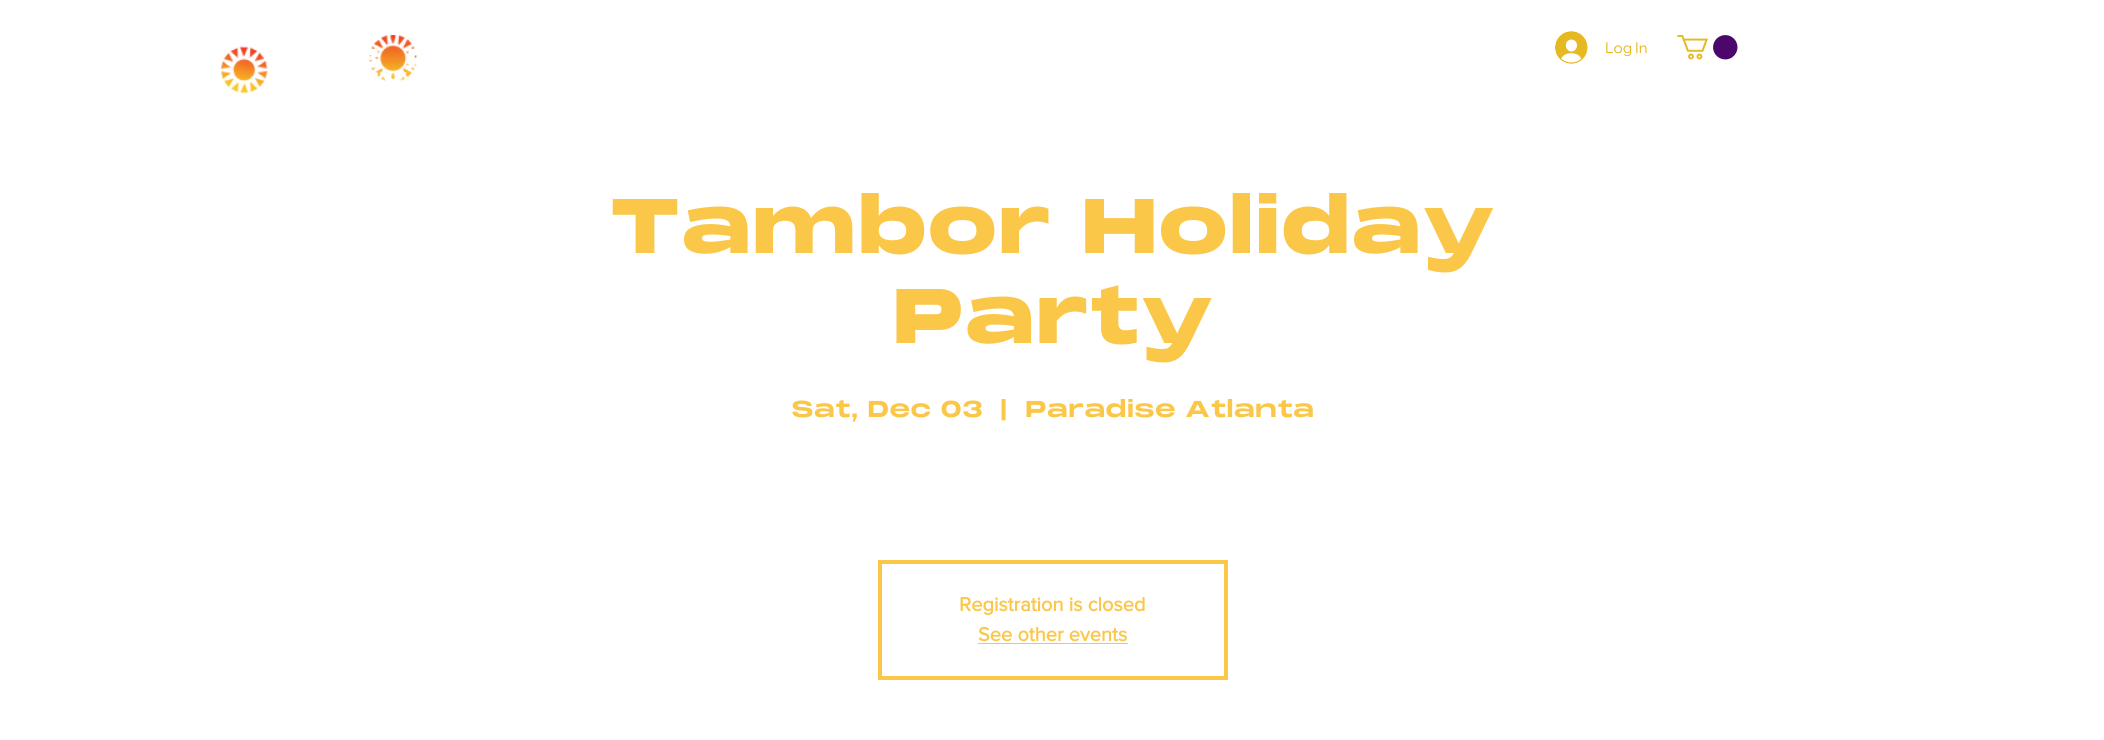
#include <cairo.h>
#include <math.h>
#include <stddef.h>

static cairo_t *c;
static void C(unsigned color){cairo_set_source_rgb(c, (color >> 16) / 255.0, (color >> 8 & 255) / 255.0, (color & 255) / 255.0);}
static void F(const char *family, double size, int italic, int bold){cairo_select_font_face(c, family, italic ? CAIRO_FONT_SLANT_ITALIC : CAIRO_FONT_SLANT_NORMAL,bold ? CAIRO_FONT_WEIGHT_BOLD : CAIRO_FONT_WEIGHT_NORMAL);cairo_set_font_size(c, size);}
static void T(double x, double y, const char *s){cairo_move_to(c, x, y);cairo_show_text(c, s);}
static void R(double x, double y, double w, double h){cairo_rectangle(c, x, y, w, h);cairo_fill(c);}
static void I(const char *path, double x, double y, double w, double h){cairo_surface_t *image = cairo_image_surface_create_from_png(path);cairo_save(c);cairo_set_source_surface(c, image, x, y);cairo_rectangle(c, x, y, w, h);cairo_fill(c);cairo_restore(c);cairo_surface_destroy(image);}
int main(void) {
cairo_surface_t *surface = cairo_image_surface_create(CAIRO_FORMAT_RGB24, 2104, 740);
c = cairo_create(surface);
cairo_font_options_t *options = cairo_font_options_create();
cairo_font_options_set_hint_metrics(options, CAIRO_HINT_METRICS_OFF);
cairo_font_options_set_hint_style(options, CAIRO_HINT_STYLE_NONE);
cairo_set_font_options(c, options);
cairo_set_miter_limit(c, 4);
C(0xffffff);
cairo_paint(c);
I("1.png",220,46,48,48);
I("2.png",368,35,50,47);
I("3.png",1555,31,33,33);
F("Wix Madefor Display",15,0,0);
C(0xe6b821);
T(1605,53,"Log In");
I("4.png",1677,35,61,25);
F("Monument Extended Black",75,0,0);
C(0xfac748);
T(609,253,"Tambor Holiday");
T(892,343,"Party");
F("Monument Extended",22.5,0,1);
T(791,417,"Sat, Dec 03");
T(1000,417,"|");
T(1025,417,"Paradise Atlanta");
cairo_rectangle(c,880,562,346,116);
cairo_set_line_width(c,4);
cairo_stroke(c);
F("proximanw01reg",20,0,1);
T(959,611,"Registration is closed");
T(978,641,"See other events");
R(978,643,150,1);
cairo_surface_write_to_png(surface, "o.png");
cairo_font_options_destroy(options);
cairo_destroy(c);
cairo_surface_destroy(surface);
return 0;
}
